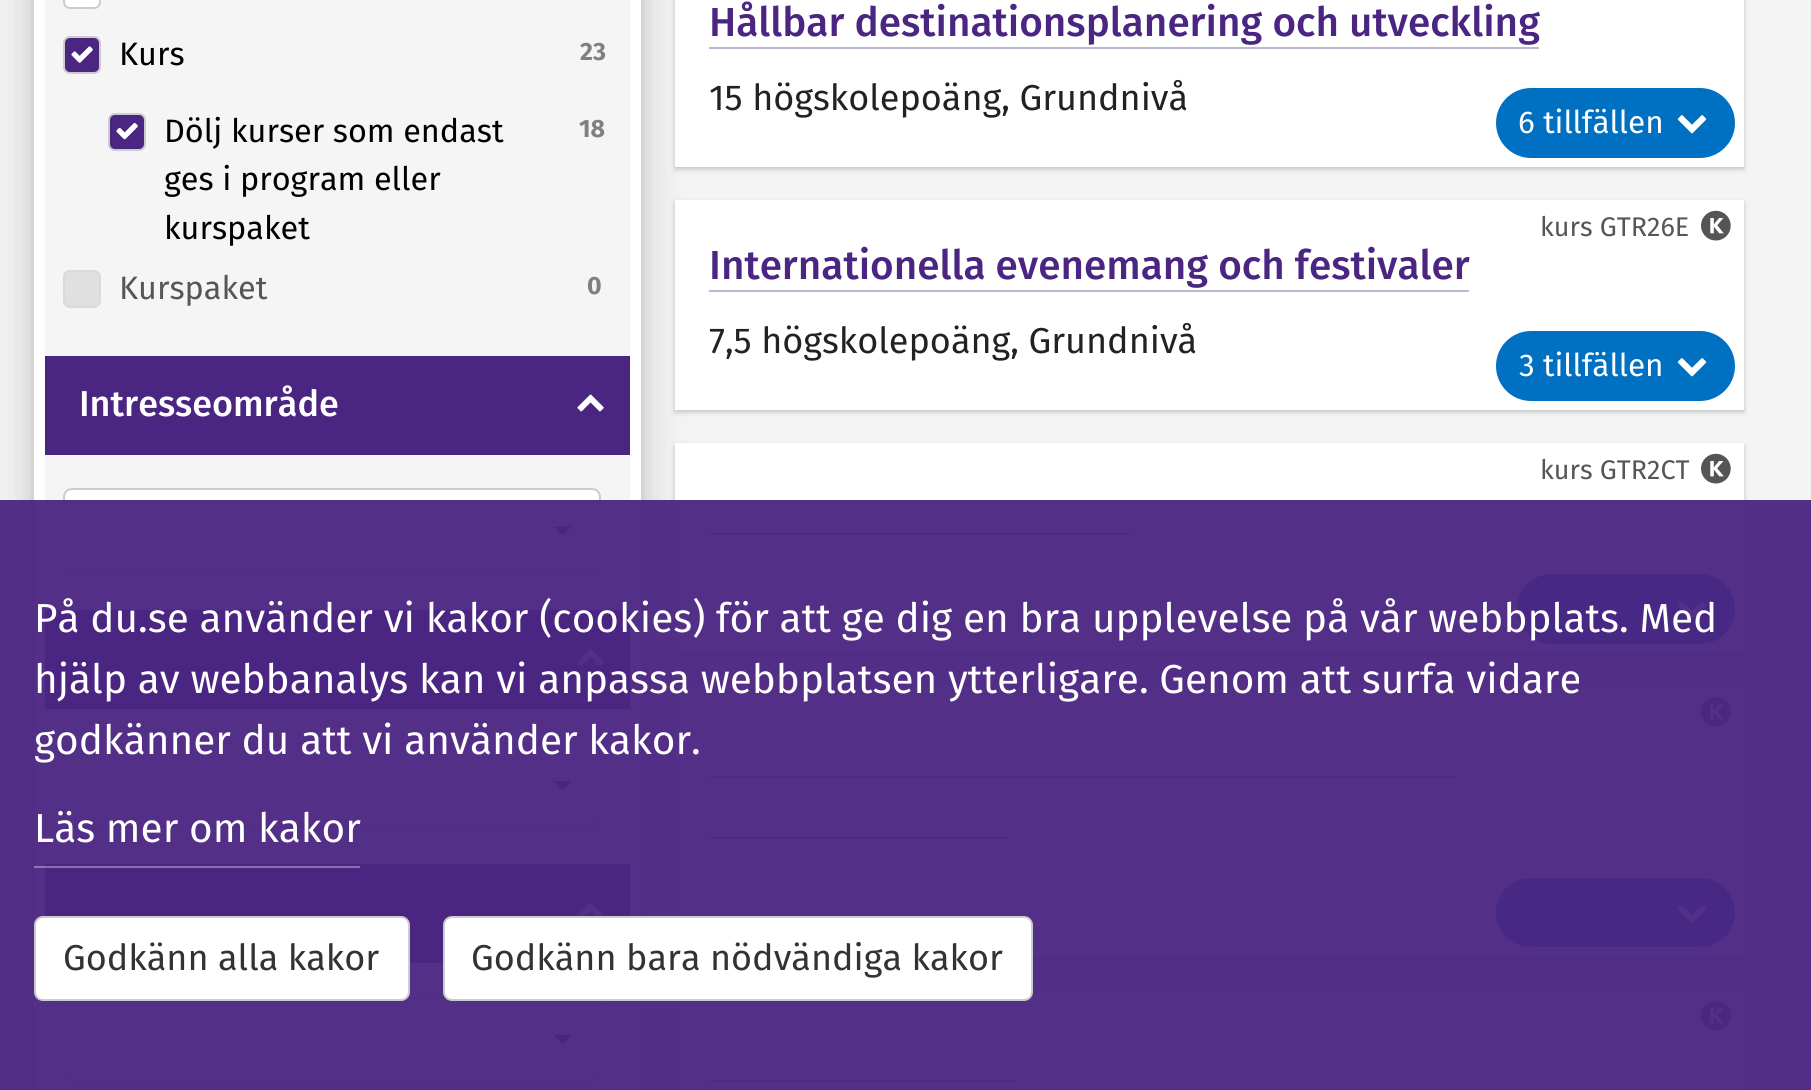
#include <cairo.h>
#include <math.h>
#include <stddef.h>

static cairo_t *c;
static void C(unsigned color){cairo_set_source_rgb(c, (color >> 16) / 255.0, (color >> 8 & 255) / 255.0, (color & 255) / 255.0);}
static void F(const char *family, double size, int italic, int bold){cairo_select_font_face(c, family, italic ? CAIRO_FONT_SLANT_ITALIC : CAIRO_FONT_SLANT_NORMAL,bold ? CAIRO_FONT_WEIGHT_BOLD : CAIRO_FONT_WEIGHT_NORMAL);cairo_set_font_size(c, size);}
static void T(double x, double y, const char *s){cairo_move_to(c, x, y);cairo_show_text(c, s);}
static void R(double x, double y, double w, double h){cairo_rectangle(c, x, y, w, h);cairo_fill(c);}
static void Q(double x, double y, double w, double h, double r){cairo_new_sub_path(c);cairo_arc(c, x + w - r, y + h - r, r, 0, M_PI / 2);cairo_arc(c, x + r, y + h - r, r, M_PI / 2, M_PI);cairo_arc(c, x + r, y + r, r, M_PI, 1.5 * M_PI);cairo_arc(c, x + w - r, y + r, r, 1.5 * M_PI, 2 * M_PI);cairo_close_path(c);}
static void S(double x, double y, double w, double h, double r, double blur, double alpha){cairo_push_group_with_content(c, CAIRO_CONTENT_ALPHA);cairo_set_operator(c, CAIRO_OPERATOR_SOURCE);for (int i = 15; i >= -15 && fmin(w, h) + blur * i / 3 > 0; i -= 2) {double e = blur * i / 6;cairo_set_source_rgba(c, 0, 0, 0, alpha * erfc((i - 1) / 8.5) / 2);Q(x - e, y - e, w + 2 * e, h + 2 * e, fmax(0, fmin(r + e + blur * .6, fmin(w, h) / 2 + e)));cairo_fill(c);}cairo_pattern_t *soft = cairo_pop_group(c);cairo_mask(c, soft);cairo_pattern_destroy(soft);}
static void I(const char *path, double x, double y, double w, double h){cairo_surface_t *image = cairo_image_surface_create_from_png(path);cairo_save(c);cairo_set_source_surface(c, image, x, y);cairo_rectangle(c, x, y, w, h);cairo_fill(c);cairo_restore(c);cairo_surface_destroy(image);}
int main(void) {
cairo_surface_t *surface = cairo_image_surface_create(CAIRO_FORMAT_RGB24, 1811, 1090);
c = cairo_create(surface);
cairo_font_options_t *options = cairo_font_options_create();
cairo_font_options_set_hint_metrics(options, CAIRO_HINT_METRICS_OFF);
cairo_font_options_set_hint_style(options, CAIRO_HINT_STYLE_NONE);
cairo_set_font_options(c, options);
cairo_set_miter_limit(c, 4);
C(0xf4f4f4);
cairo_paint(c);
C(0x000000);
S(34,-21,607,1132,0,7,.1);
S(34,-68,607,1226,0,22.5,.19);
C(0xffffff);
R(34,0,607,1090);
C(0x000000);
S(45,-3,585,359,0,1,.05);
C(0xf5f5f5);
R(47,0,581,353);
C(0xffffff);
Q(64,-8,36,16,6);
cairo_fill_preserve(c);
C(0xcccccc);
cairo_stroke(c);
C(0x4b2582);
Q(64,37,36,36,6);
cairo_fill_preserve(c);
C(0xcccccc);
cairo_stroke(c);
F("Fira Sans",32.4,0,0);
C(0x000000);
T(119,65,"Kurs");
I("1.png",71,46,22,17);
F("Fira Sans",25,0,1);
C(0x808080);
T(580,60,"23");
C(0x4b2582);
Q(109,114,36,36,6);
cairo_fill_preserve(c);
C(0xcccccc);
cairo_stroke(c);
F("Fira Sans",32.4,0,0);
C(0x000000);
T(164,142,"Dölj kurser som endast");
I("2.png",116,122,22,18);
T(164,190,"ges i program eller");
T(164,239,"kurspaket");
F("Fira Sans",25,0,1);
C(0x808080);
T(579,137,"18");
C(0xe0e0e0);
Q(64,271,36,36,6);
cairo_fill_preserve(c);
C(0xdadada);
cairo_stroke(c);
F("Fira Sans",32.4,0,0);
C(0x565656);
T(119,299,"Kurspaket");
F("Fira Sans",25,0,1);
C(0x808080);
T(587,294,"0");
C(0x000000);
S(45,358,585,252,0,1,.05);
C(0x4b2582);
R(45,356,585,99);
F("Fira Sans Medium",36,0,0);
C(0xffffff);
T(79,416,"Intresseområde");
I("3.png",577,394,27,18);
C(0xf5f5f5);
R(47,455,581,153);
C(0xffffff);
Q(64,489,536,84,8);
cairo_fill_preserve(c);
C(0xcccccc);
cairo_stroke(c);
C(0x333333);
cairo_new_path(c);
cairo_move_to(c,553.5,526.5);
cairo_line_to(c,571.5,526.5);
cairo_line_to(c,562.5,535.5);
cairo_close_path(c);
cairo_fill(c);
C(0x000000);
S(45,612,585,252,0,1,.05);
C(0x4b2582);
R(45,610,585,99);
I("4.png",577,648,27,18);
C(0xf5f5f5);
R(47,709,581,153);
C(0xffffff);
Q(64,744,536,83,8);
cairo_fill_preserve(c);
C(0xcccccc);
cairo_stroke(c);
C(0x333333);
cairo_new_path(c);
cairo_move_to(c,553.5,781);
cairo_line_to(c,571.5,781);
cairo_line_to(c,562.5,790);
cairo_close_path(c);
cairo_fill(c);
C(0x4b2582);
R(45,864,585,99);
I("5.png",577,903,27,13);
C(0xf5f5f5);
R(45,963,585,127);
C(0xffffff);
Q(64,998,536,83,8);
cairo_fill_preserve(c);
C(0xcccccc);
cairo_stroke(c);
C(0x333333);
cairo_new_path(c);
cairo_move_to(c,553.5,1035);
cairo_line_to(c,571.5,1035);
cairo_line_to(c,562.5,1044);
cairo_close_path(c);
cairo_fill(c);
C(0x000000);
S(675,-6,1069,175,0,2,.1);
S(675,-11,1069,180,0,3.5,.12);
C(0xffffff);
R(675,0,1069,167);
F("Fira Sans Medium",40.5,0,0);
C(0x4b2582);
T(709,36,"Hållbar destinationsplanering och utveckling");
C(0xc0b3d3);
R(709,47,830,2);
F("Fira Sans",36,0,0);
C(0x222222);
T(709,110,"15 högskolepoäng, Grundnivå");
C(0x0071c2);
Q(1496,88,239,70,35);
cairo_fill(c);
F("Fira Sans",31.5,0,0);
C(0xffffff);
T(1518,133,"6 tillfällen");
I("6.png",1677,115,30,19);
C(0x000000);
S(675,203,1069,209,0,2,.1);
S(675,203,1069,209,0,3.5,.12);
C(0xffffff);
R(675,200,1069,210);
F("Fira Sans",27,0,0);
C(0x565656);
T(1540,236,"kurs GTR26E");
I("7.png",1701,210,30,31);
F("Fira Sans Medium",40.5,0,0);
C(0x4b2582);
T(709,279,"Internationella evenemang och festivaler");
C(0xc0b3d3);
R(709,290,760,2);
F("Fira Sans",36,0,0);
C(0x222222);
T(709,353,"7,5 högskolepoäng, Grundnivå");
C(0x0071c2);
Q(1496,331,239,70,35);
cairo_fill(c);
F("Fira Sans",31.5,0,0);
C(0xffffff);
T(1519,376,"3 tillfällen");
I("6.png",1677,358,30,19);
C(0x000000);
S(675,446,1069,209,0,2,.1);
S(675,446,1069,209,0,3.5,.12);
C(0xffffff);
R(675,443,1069,210);
F("Fira Sans",27,0,0);
C(0x565656);
T(1540,479,"kurs GTR2CT");
I("7.png",1701,453,30,31);
C(0xc0b3d3);
R(709,533,423,2);
C(0x0071c2);
Q(1517,574,218,70,35);
cairo_fill(c);
I("6.png",1677,601,30,19);
C(0x000000);
S(675,689,1069,270,0,2,.1);
S(675,689,1069,270,0,3.5,.12);
C(0xffffff);
R(675,686,1069,270);
I("7.png",1701,696,30,31);
C(0xc0b3d3);
R(709,776,747,2);
R(709,837,299,2);
C(0x0071c2);
Q(1496,878,239,69,34.5);
cairo_fill(c);
I("8.png",1677,904,30,19);
C(0x000000);
S(675,992,1069,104,0,2,.1);
S(675,992,1069,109,0,3.5,.12);
C(0xffffff);
R(675,990,1069,100);
I("9.png",1701,1000,30,31);
C(0xc0b3d3);
R(709,1080,306,2);
cairo_set_source_rgba(c,0.294,0.145,0.51,0.95);
R(0,500,1811,590);
F("Fira Sans",40.5,0,0);
C(0xffffff);
T(34,632,"På du.se använder vi kakor (cookies) för att ge dig en bra upplevelse på vår webbplats. Med");
T(34,693,"hjälp av webbanalys kan vi anpassa webbplatsen ytterligare. Genom att surfa vidare");
T(34,754,"godkänner du att vi använder kakor.");
T(34,842,"Läs mer om kakor");
cairo_set_source_rgba(c,1,1,1,0.35);
R(34,866,326,2);
C(0xffffff);
Q(35,917,374,83,8);
cairo_fill_preserve(c);
C(0xcccccc);
cairo_stroke(c);
F("Fira Sans",36,0,0);
C(0x333333);
T(63,970,"Godkänn alla kakor");
C(0xffffff);
Q(444,917,588,83,8);
cairo_fill_preserve(c);
C(0xcccccc);
cairo_stroke(c);
C(0x333333);
T(471,970,"Godkänn bara nödvändiga kakor");
cairo_surface_write_to_png(surface, "o.png");
cairo_font_options_destroy(options);
cairo_destroy(c);
cairo_surface_destroy(surface);
return 0;
}
